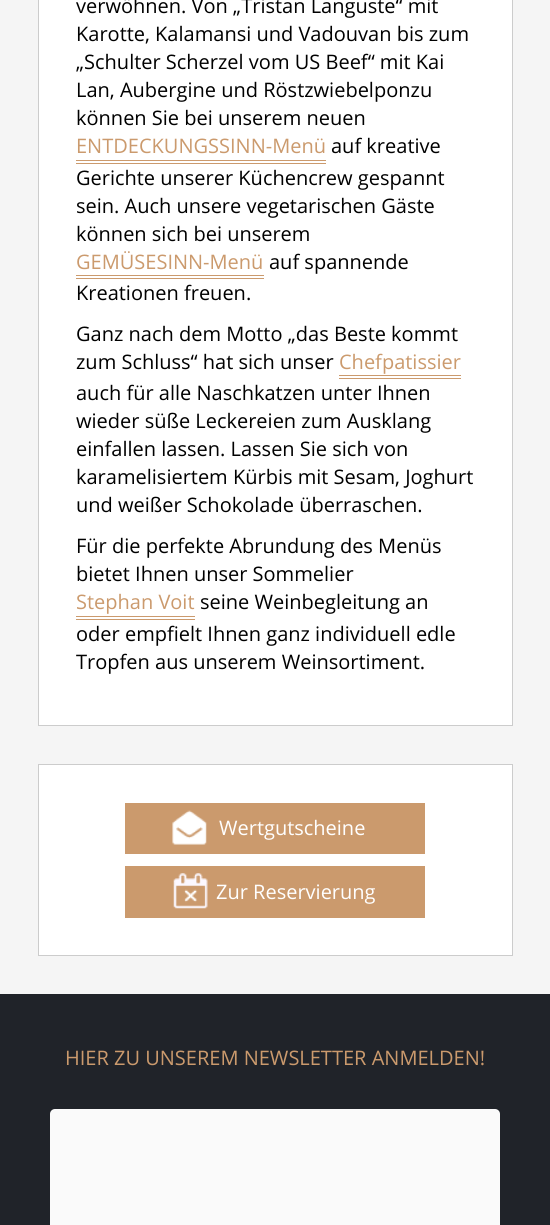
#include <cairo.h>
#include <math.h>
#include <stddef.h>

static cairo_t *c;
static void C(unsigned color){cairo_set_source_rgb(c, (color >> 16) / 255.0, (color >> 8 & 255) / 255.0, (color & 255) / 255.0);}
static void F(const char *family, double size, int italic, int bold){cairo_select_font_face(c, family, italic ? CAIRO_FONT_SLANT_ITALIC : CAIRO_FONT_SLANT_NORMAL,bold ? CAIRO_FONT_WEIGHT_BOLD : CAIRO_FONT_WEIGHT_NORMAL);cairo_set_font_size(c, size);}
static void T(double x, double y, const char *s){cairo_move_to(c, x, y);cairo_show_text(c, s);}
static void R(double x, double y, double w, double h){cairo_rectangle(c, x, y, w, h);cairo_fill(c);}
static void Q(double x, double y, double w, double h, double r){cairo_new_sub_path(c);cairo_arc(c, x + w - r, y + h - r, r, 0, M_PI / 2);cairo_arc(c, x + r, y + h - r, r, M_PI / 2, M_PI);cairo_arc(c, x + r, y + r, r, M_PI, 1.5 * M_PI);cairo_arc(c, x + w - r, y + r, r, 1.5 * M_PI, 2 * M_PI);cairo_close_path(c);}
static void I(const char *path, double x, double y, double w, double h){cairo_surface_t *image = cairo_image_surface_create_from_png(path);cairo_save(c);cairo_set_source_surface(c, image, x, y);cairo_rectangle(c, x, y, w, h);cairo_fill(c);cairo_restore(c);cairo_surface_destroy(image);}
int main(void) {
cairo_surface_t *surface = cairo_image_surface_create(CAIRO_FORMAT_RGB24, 550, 1225);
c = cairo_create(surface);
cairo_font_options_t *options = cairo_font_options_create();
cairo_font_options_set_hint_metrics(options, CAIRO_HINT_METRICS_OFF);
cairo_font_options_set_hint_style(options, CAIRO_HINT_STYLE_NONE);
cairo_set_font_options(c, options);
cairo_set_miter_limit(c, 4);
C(0xf5f5f5);
cairo_paint(c);
C(0xffffff);
cairo_rectangle(c,38.5,-.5,474,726);
cairo_fill_preserve(c);
C(0xcccccc);
cairo_set_line_width(c,1);
cairo_stroke(c);
F("Open Sans",20,0,0);
C(0x000000);
T(76,13,"verwöhnen. Von „Tristan Languste“ mit");
T(76,41,"Karotte, Kalamansi und Vadouvan bis zum");
T(76,69,"„Schulter Scherzel vom US Beef“ mit Kai");
T(76,97,"Lan, Aubergine und Röstzwiebelponzu");
T(76,125,"können Sie bei unserem neuen");
C(0xcb9a6d);
R(76,160,250,1);
R(76,163,250,1);
T(76,153,"ENTDECKUNGSSINN-Menü");
C(0x000000);
T(331,153,"auf kreative");
T(76,185,"Gerichte unserer Küchencrew gespannt");
T(76,213,"sein. Auch unsere vegetarischen Gäste");
T(76,241,"können sich bei unserem");
C(0xcb9a6d);
R(76,275,188,1);
R(76,278,188,1);
T(76,269,"GEMÜSESINN-Menü");
C(0x000000);
T(269,269,"auf spannende");
T(76,300,"Kreationen freuen.");
T(76,341,"Ganz nach dem Motto „das Beste kommt");
T(76,369,"zum Schluss“ hat sich unser");
C(0xcb9a6d);
R(339,375,122,1);
R(339,378,122,1);
T(339,369,"Chefpatissier");
C(0x000000);
T(76,400,"auch für alle Naschkatzen unter Ihnen");
T(76,428,"wieder süße Leckereien zum Ausklang");
T(76,456,"einfallen lassen. Lassen Sie sich von");
T(76,484,"karamelisiertem Kürbis mit Sesam, Joghurt");
T(76,512,"und weißer Schokolade überraschen.");
T(76,553,"Für die perfekte Abrundung des Menüs");
T(76,581,"bietet Ihnen unser Sommelier");
C(0xcb9a6d);
R(76,616,119,1);
R(76,619,119,1);
T(76,609,"Stephan Voit");
C(0x000000);
T(200,609,"seine Weinbegleitung an");
T(76,641,"oder empfielt Ihnen ganz individuell edle");
T(76,669,"Tropfen aus unserem Weinsortiment.");
C(0xffffff);
cairo_rectangle(c,38.5,764.5,474,191);
cairo_fill_preserve(c);
C(0xcccccc);
cairo_stroke(c);
C(0xcb9a6d);
R(125,803,300,51);
I("1.png",172,810,35,35);
C(0xffffff);
T(219,835,"Wertgutscheine");
C(0xcb9a6d);
R(125,866,300,52);
I("2.png",173,873,35,36);
C(0xffffff);
T(216,899,"Zur Reservierung");
C(0x202329);
R(0,994,550,231);
C(0xcb9a6d);
T(65,1065,"HIER ZU UNSEREM NEWSLETTER ANMELDEN!");
C(0xfafafa);
Q(50,1109,450,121,5);
cairo_fill(c);
cairo_surface_write_to_png(surface, "o.png");
cairo_font_options_destroy(options);
cairo_destroy(c);
cairo_surface_destroy(surface);
return 0;
}
